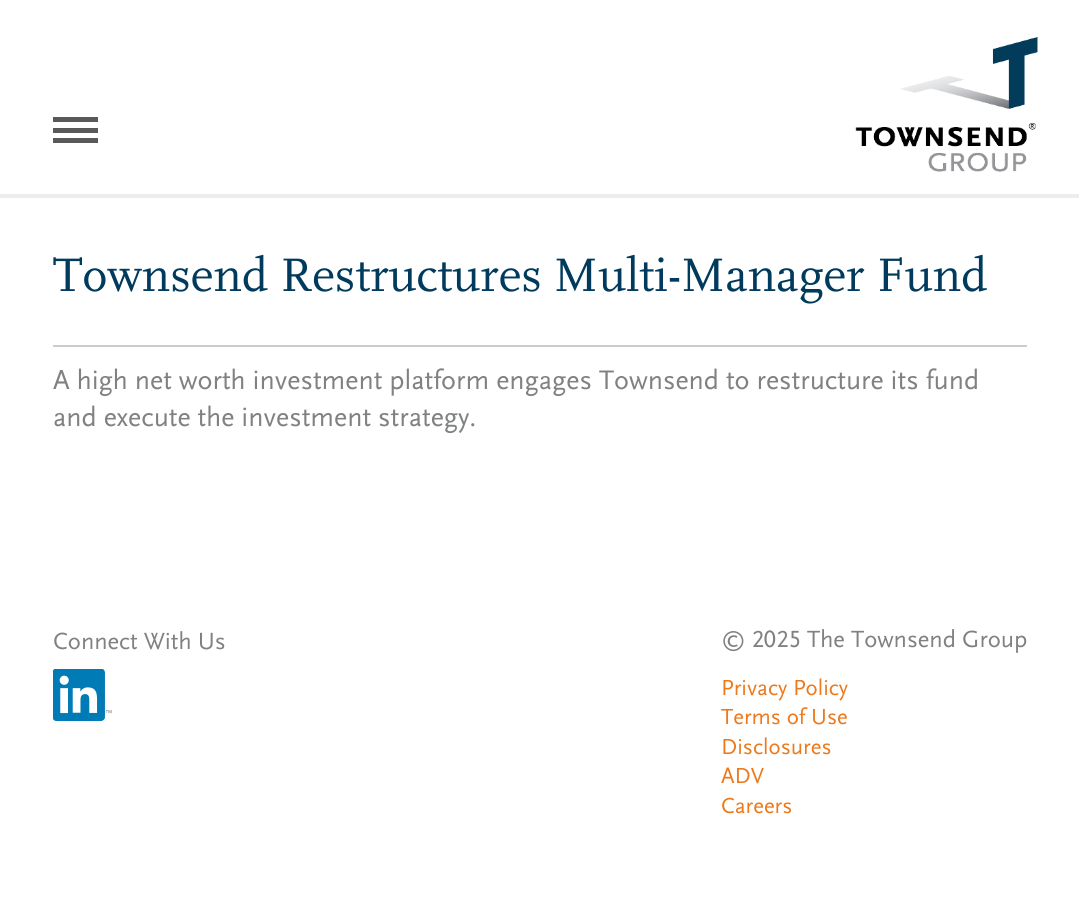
#include <cairo.h>
#include <math.h>
#include <stddef.h>

static cairo_t *c;
static void C(unsigned color){cairo_set_source_rgb(c, (color >> 16) / 255.0, (color >> 8 & 255) / 255.0, (color & 255) / 255.0);}
static void F(const char *family, double size, int italic, int bold){cairo_select_font_face(c, family, italic ? CAIRO_FONT_SLANT_ITALIC : CAIRO_FONT_SLANT_NORMAL,bold ? CAIRO_FONT_WEIGHT_BOLD : CAIRO_FONT_WEIGHT_NORMAL);cairo_set_font_size(c, size);}
static void T(double x, double y, const char *s){cairo_move_to(c, x, y);cairo_show_text(c, s);}
static void R(double x, double y, double w, double h){cairo_rectangle(c, x, y, w, h);cairo_fill(c);}
static void I(const char *path, double x, double y, double w, double h){cairo_surface_t *image = cairo_image_surface_create_from_png(path);cairo_save(c);cairo_set_source_surface(c, image, x, y);cairo_rectangle(c, x, y, w, h);cairo_fill(c);cairo_restore(c);cairo_surface_destroy(image);}
int main(void) {
cairo_surface_t *surface = cairo_image_surface_create(CAIRO_FORMAT_RGB24, 1079, 909);
c = cairo_create(surface);
cairo_font_options_t *options = cairo_font_options_create();
cairo_font_options_set_hint_metrics(options, CAIRO_HINT_METRICS_OFF);
cairo_font_options_set_hint_style(options, CAIRO_HINT_STYLE_NONE);
cairo_set_font_options(c, options);
cairo_set_miter_limit(c, 4);
C(0xffffff);
cairo_paint(c);
I("1.png",855,37,183,135);
C(0x595959);
R(53,128,45,5);
R(53,117,45,5);
R(53,138,45,5);
C(0xededed);
R(0,194,1079,4);
C(0xcccccc);
R(53,345,974,2);
F("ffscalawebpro",49,0,0);
C(0x003a5d);
T(53,291,"Townsend Restructures Multi-Manager Fund");
F("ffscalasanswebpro",28,0,0);
C(0x7f8183);
T(53,389,"A high net worth investment platform engages Townsend to restructure its fund");
T(53,426,"and execute the investment strategy.");
F("ffscalasanswebpro",24.5,0,0);
T(53,649,"Connect With Us");
I("2.png",53,669,59,52);
T(721,647,"© 2025 The Townsend Group");
F("ffscalasanswebpro",22.75,0,0);
C(0xec7a1d);
T(721,695,"Privacy Policy");
T(721,724,"Terms of Use");
T(721,754,"Disclosures");
T(721,783,"ADV");
T(721,813,"Careers");
cairo_surface_write_to_png(surface, "o.png");
cairo_font_options_destroy(options);
cairo_destroy(c);
cairo_surface_destroy(surface);
return 0;
}
